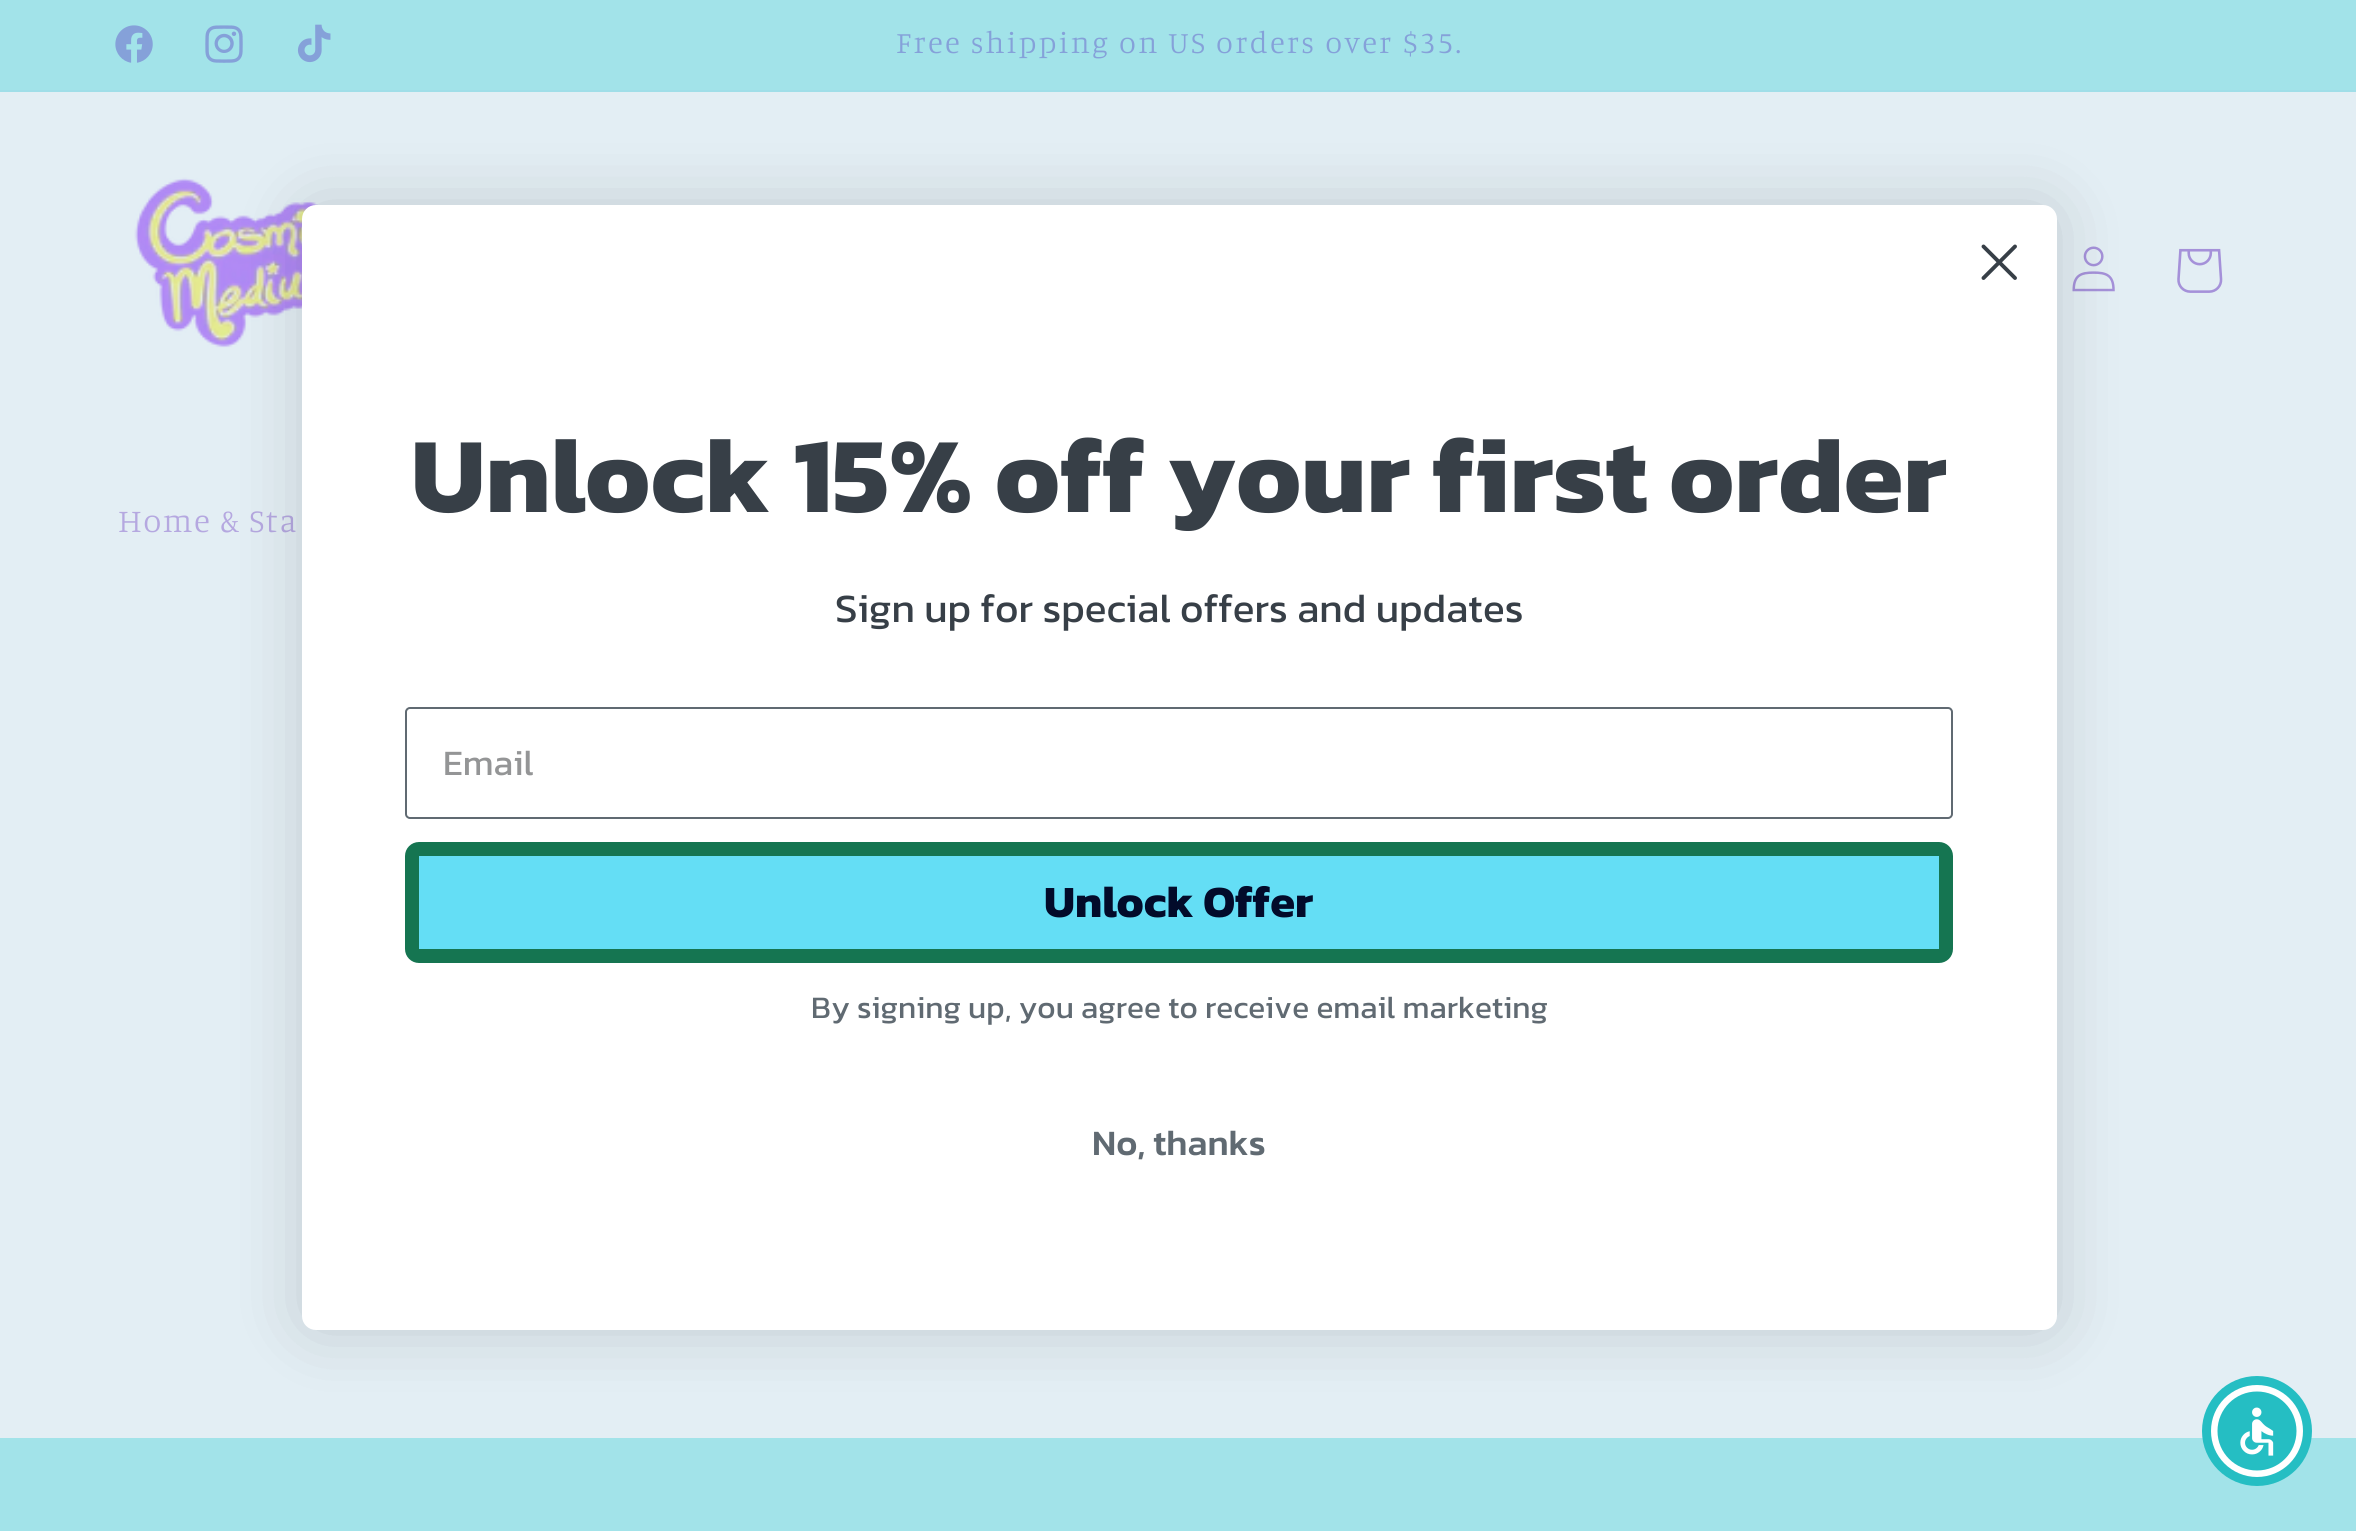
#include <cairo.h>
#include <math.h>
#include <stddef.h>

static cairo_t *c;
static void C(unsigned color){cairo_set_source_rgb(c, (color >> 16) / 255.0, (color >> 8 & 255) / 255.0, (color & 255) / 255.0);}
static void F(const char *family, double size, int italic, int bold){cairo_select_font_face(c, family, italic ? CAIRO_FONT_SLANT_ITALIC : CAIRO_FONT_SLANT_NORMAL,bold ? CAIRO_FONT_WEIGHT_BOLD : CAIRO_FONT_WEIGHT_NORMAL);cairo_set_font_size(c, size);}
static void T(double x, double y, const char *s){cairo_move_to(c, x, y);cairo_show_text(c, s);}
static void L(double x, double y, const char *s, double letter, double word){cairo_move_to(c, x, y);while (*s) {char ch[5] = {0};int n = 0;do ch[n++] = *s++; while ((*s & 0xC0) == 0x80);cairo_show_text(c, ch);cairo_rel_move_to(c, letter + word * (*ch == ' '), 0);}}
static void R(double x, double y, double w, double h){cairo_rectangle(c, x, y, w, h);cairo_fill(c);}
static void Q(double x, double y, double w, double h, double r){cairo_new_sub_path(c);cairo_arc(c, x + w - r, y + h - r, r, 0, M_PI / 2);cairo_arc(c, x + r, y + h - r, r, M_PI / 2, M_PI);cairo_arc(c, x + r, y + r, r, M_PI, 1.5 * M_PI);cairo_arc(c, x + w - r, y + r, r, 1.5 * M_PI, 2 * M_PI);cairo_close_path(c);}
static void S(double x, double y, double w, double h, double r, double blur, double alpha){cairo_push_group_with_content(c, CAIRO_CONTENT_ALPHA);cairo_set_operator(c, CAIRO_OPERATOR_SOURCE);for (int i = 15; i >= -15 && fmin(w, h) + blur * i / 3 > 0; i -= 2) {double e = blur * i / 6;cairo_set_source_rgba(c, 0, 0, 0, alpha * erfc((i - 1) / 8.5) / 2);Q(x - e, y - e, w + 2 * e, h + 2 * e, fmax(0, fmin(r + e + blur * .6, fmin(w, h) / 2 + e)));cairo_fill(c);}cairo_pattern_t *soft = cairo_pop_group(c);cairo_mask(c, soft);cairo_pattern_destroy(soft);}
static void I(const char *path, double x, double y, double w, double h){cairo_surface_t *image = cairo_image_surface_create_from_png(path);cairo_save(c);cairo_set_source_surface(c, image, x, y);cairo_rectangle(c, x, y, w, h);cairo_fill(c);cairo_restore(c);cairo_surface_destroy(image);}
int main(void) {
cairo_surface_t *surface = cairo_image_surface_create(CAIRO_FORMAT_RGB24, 2356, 1531);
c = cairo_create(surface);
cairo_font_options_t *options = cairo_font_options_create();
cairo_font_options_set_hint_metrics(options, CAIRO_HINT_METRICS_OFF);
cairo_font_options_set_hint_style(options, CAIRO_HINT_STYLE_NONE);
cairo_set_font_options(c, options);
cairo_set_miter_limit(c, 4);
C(0xe3eef4);
cairo_paint(c);
C(0xa2e3e9);
R(0,0,2356,90);
C(0xa0dee8);
R(0,90,2356,2);
I("1.png",115,25,38,38);
I("2.png",205,25,38,38);
I("3.png",297,24,34,39);
F("Manuale Light",30.75,0,0);
C(0x85a1d9);
L(896,53,"Free shipping on US orders over $35.",2.35,0);
I("4.png",134,177,184,171);
I("5.png",2072,246,43,46);
I("6.png",2177,248,46,45);
F("Manuale Light",33,0,0);
C(0xb5a8e0);
L(118,532,"Home & Sta",1.5,0);
C(0x000000);
S(302,205,1755,1125,14,34,.15);
C(0xffffff);
Q(302,205,1755,1125,14);
cairo_fill(c);
cairo_new_path(c);
cairo_move_to(c,1983.5,246.5);
cairo_line_to(c,2015,278);
cairo_move_to(c,1983.5,278);
cairo_line_to(c,2015,246.5);
cairo_close_path(c);
C(0x373f47);
cairo_set_line_width(c,3.9);
cairo_set_line_cap(c,CAIRO_LINE_CAP_ROUND);
cairo_set_line_join(c,CAIRO_LINE_JOIN_ROUND);
cairo_stroke(c);
F("Kanit",108,0,1);
T(411,512,"Unlock 15% off your first order");
F("Kanit",40.5,0,0);
T(835,622,"Sign up for special offers and updates");
Q(406,708,1546,110,4);
C(0x606a72);
cairo_set_line_width(c,2);
cairo_set_line_cap(c,CAIRO_LINE_CAP_BUTT);
cairo_set_line_join(c,CAIRO_LINE_JOIN_MITER);
cairo_stroke(c);
F("Kanit",36,0,0);
C(0x949596);
T(443,775,"Email");
C(0x64def5);
Q(412,849,1534,107,7);
cairo_fill_preserve(c);
C(0x157551);
cairo_set_line_width(c,14);
cairo_stroke(c);
F("Kanit",45,0,1);
C(0x020b2a);
T(1044,917,"Unlock Offer");
F("Kanit",31.5,0,0);
C(0x606a72);
T(811,1018,"By signing up, you agree to receive email marketing");
F("Kanit Medium",36,0,0);
T(1092,1155,"No, thanks");
C(0xa2e3e9);
R(0,1438,2356,93);
C(0x25bec3);
cairo_new_path(c);
cairo_arc(c,2257,1431,55,0,2 * M_PI);
cairo_fill(c);
C(0xffffff);
cairo_arc(c,2257,1431,46,0,2 * M_PI);
cairo_fill(c);
C(0x25bec3);
cairo_arc(c,2257,1431,39.5,0,2 * M_PI);
cairo_fill(c);
I("7.png",2240,1407,34,49);
cairo_surface_write_to_png(surface, "o.png");
cairo_font_options_destroy(options);
cairo_destroy(c);
cairo_surface_destroy(surface);
return 0;
}
